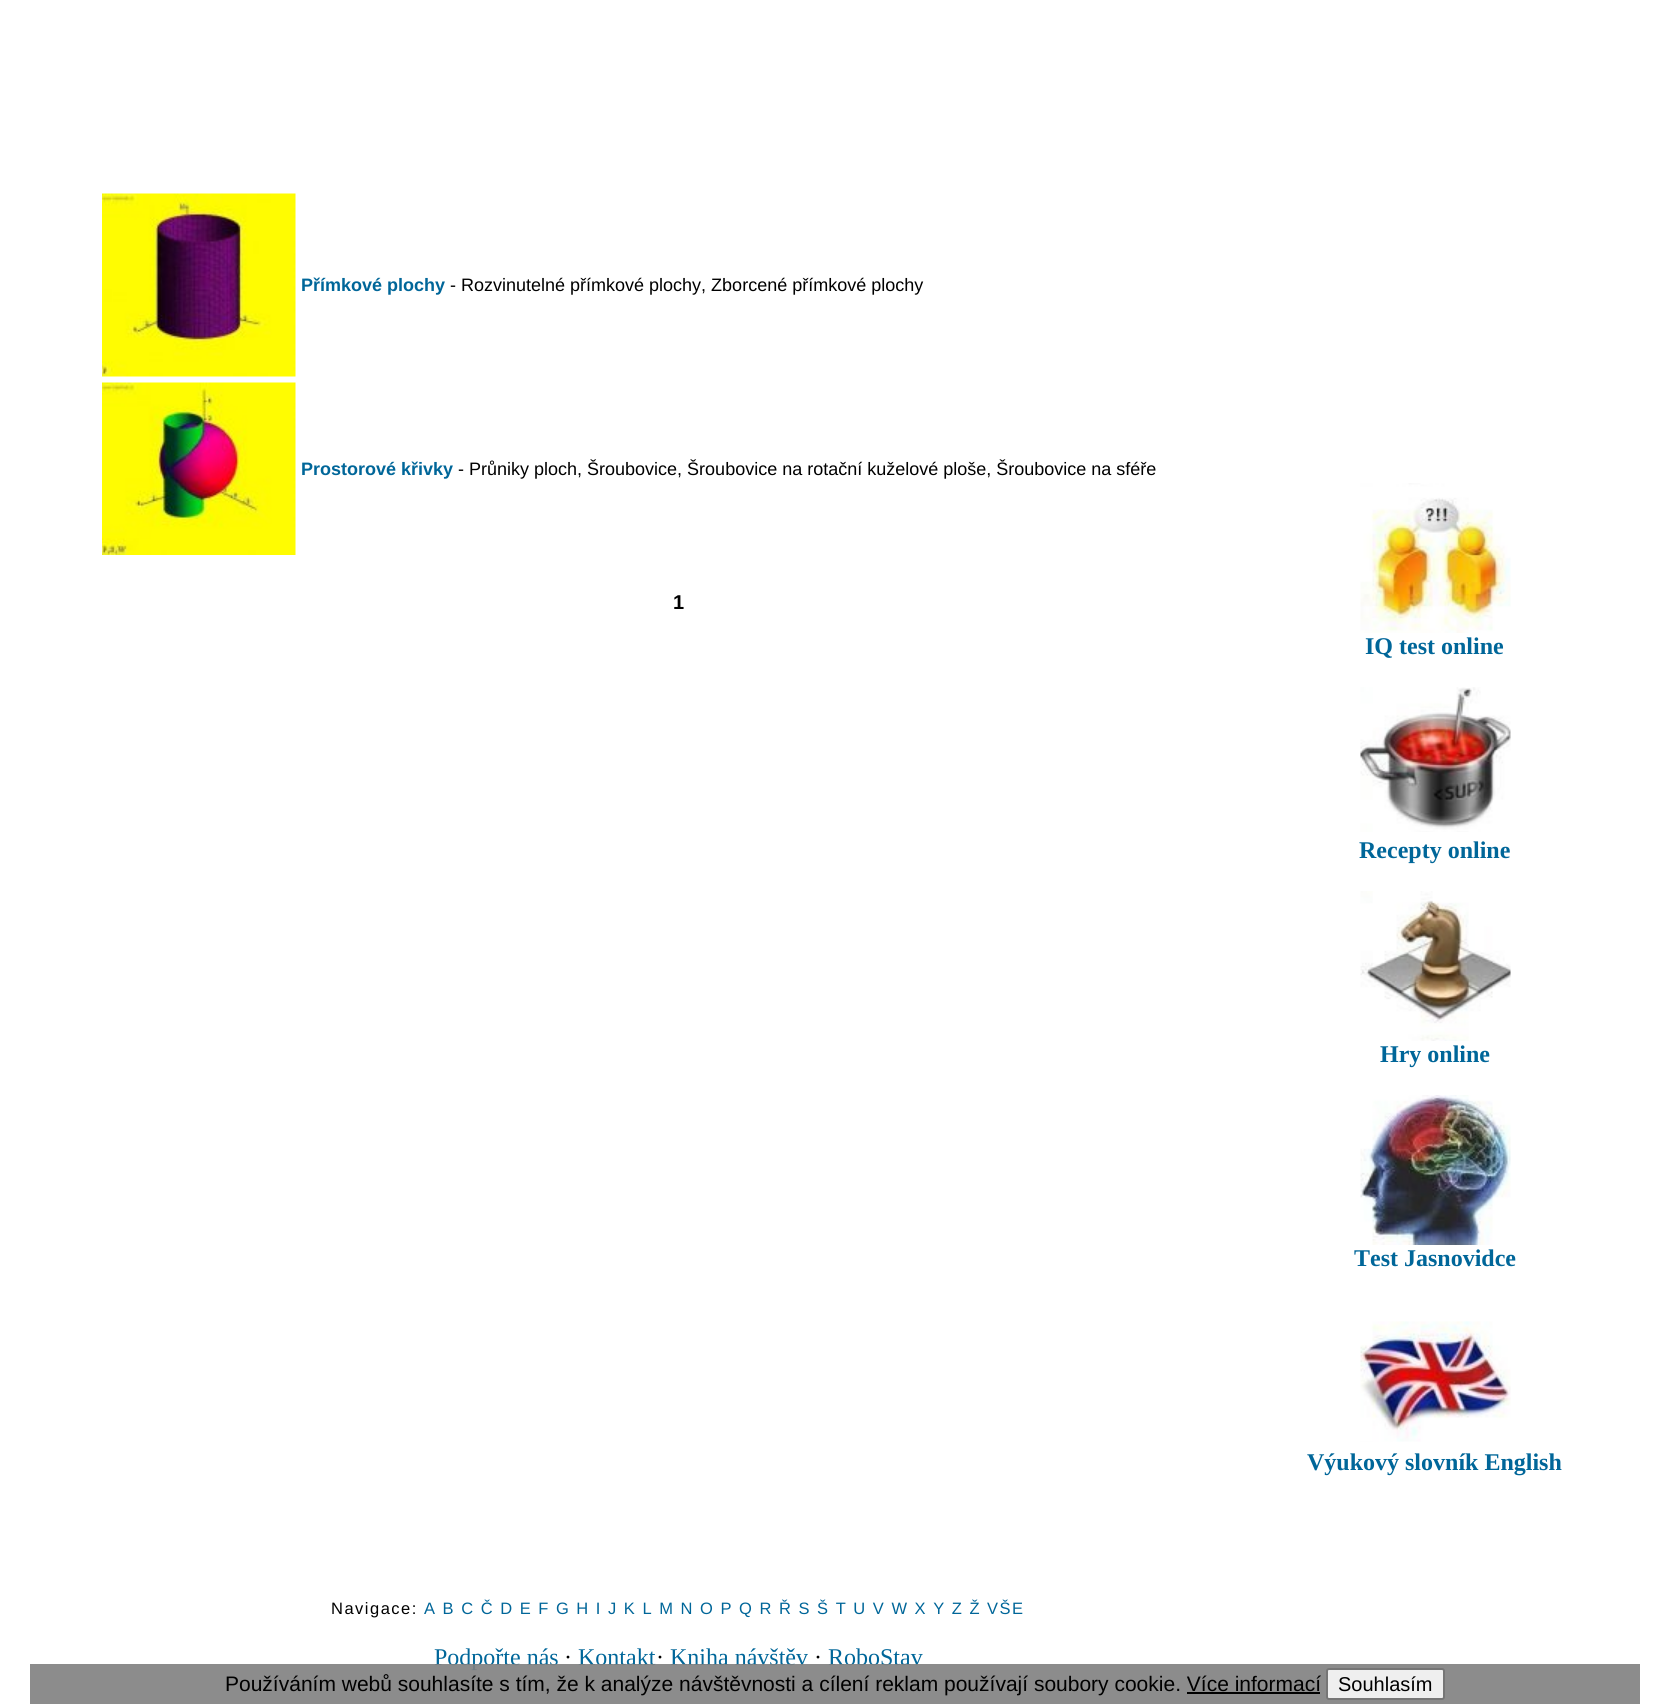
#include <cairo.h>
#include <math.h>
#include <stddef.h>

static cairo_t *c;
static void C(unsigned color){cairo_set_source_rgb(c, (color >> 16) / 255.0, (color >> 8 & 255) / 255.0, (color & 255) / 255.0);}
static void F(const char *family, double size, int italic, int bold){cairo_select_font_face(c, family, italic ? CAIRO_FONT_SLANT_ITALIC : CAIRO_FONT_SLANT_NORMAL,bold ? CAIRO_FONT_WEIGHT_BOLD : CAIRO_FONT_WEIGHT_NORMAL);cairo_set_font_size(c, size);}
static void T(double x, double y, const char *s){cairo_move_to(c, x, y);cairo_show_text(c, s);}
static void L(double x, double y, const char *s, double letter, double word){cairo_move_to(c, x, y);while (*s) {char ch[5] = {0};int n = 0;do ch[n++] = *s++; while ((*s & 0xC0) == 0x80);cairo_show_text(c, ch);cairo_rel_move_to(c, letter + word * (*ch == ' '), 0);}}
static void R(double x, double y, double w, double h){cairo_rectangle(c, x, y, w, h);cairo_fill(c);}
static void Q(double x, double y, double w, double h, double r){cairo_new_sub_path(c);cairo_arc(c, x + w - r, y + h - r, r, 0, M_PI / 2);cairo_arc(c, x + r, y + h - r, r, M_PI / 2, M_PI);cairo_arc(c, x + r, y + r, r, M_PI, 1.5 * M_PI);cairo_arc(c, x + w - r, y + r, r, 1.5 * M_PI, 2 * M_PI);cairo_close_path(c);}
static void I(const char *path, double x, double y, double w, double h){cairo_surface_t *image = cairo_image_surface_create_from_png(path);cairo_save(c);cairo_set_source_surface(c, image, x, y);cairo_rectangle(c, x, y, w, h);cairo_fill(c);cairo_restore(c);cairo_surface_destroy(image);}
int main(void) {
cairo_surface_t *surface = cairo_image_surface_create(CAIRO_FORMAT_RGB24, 1669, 1704);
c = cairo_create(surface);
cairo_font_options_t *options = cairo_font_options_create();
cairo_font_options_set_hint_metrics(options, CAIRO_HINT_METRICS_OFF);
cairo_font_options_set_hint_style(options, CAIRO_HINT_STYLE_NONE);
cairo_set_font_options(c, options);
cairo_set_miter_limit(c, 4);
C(0xffffff);
cairo_paint(c);
I("1.png",102,193,194,184);
F("Liberation Sans",18,0,1);
C(0x006699);
T(301,291,"Přímkové plochy");
F("Liberation Sans",18,0,0);
C(0x000000);
T(450,291,"- Rozvinutelné přímkové plochy, Zborcené přímkové plochy");
I("2.png",102,382,194,173);
F("Liberation Sans",18,0,1);
C(0x006699);
T(301,475,"Prostorové křivky");
F("Liberation Sans",18,0,0);
C(0x000000);
T(458,475,"- Průniky ploch, Šroubovice, Šroubovice na rotační kuželové ploše, Šroubovice na sféře");
F("Liberation Sans",20,0,1);
T(673,609,"1");
F("Liberation Sans",16.5,0,0);
L(331,1614,"Navigace:",1.5,0);
C(0x006699);
L(424,1614,"A B C Č D E F G H I J K L M N O P Q R Ř S Š T U V W X Y Z Ž VŠE",1.5,0);
F("Liberation Serif",24,0,0);
T(434,1665,"Podpořte nás");
C(0x000000);
T(564,1665,"·");
C(0x006699);
T(578,1665,"Kontakt");
C(0x000000);
T(656,1665,"·");
C(0x006699);
T(670,1665,"Kniha návštěv");
C(0x000000);
T(814,1665,"·");
C(0x006699);
T(828,1665,"RoboStav");
I("3.png",1360,483,151,150);
F("Liberation Serif",24,0,1);
T(1365,654,"IQ test online");
I("4.png",1360,687,151,145);
T(1359,858,"Recepty online");
I("5.png",1360,891,151,150);
T(1380,1062,"Hry online");
I("6.png",1360,1095,151,150);
T(1354,1266,"Test Jasnovidce");
I("7.png",1360,1321,151,121);
T(1307,1470,"Výukový slovník English");
cairo_set_source_rgba(c,0.502,0.502,0.502,0.9);
R(30,1664,1610,40);
F("Liberation Sans",21,0,0);
C(0x000000);
T(225,1691,"Používáním webů souhlasíte s tím, že k analýze návštěvnosti a cílení reklam používají soubory cookie. Více informací");
C(0xefefef);
Q(1327,1669,117,30,2);
cairo_fill_preserve(c);
C(0x767676);
cairo_stroke(c);
F("Liberation Sans",20,0,0);
C(0x000000);
T(1338,1691,"Souhlasím");
R(1187,1692,133,2);
cairo_surface_write_to_png(surface, "o.png");
cairo_font_options_destroy(options);
cairo_destroy(c);
cairo_surface_destroy(surface);
return 0;
}
